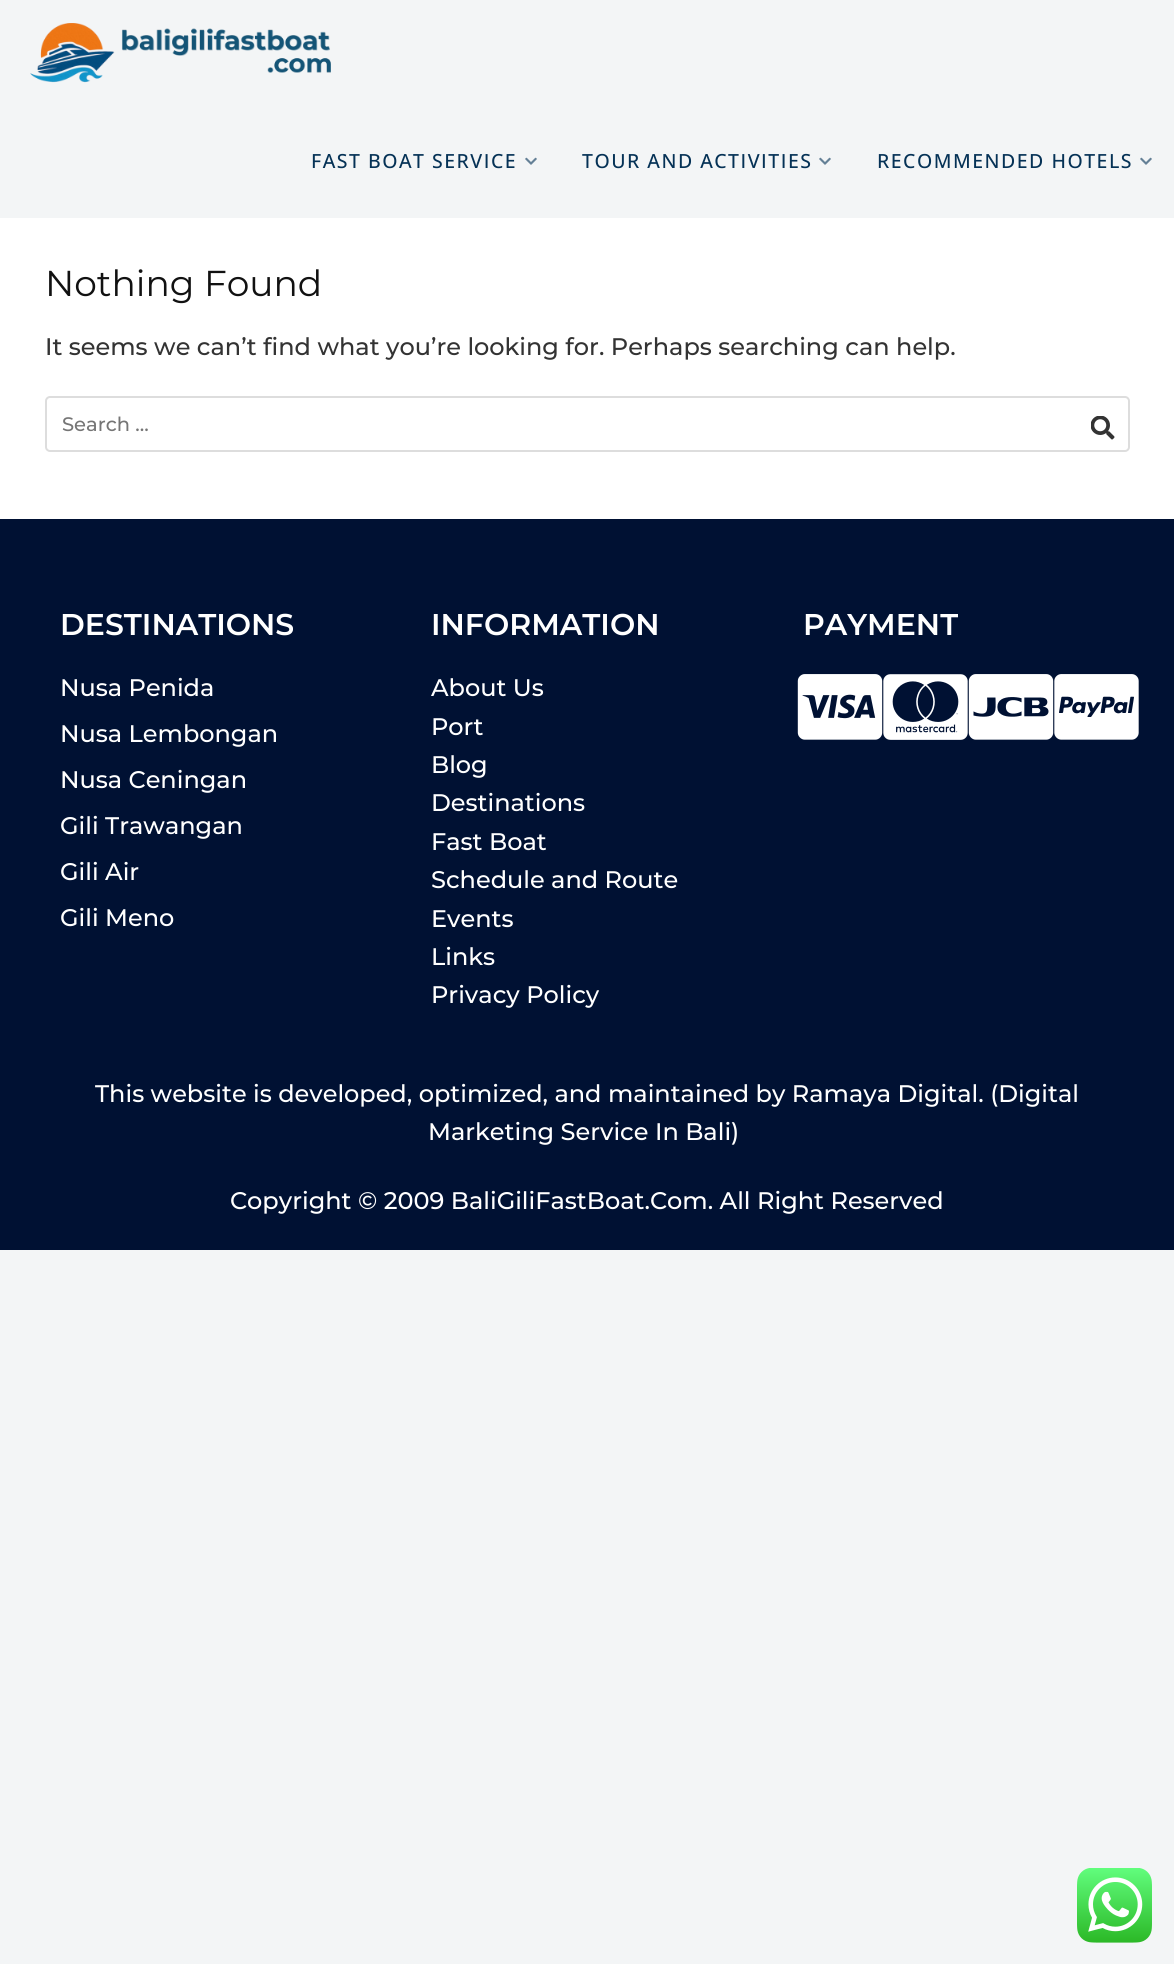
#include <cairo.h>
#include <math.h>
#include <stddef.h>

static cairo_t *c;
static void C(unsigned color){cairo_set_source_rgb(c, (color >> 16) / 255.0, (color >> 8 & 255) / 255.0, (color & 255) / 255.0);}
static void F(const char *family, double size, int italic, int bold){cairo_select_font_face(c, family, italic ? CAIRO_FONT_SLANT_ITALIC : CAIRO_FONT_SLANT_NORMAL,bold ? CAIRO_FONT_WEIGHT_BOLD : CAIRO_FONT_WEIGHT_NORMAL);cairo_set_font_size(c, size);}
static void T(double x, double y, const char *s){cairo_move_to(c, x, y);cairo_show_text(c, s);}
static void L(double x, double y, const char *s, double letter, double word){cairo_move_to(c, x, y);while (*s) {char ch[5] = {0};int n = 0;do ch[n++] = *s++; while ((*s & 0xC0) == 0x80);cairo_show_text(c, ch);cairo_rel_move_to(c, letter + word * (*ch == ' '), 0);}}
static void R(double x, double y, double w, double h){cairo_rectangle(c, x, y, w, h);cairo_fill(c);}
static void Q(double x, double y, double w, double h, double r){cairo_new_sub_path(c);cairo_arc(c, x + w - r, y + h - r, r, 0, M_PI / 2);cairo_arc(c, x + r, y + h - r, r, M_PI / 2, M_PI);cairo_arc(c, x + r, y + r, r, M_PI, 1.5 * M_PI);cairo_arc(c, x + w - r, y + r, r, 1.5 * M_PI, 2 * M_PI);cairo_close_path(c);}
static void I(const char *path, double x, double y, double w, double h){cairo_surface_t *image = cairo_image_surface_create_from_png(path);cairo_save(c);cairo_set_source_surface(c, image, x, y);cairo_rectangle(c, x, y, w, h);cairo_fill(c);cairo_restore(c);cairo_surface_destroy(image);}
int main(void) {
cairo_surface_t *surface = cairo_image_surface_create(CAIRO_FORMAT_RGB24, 1174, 1964);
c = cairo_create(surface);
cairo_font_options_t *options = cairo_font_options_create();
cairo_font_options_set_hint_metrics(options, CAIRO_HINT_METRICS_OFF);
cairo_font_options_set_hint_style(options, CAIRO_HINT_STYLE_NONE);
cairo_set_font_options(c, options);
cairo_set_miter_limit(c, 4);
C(0xf3f5f6);
cairo_paint(c);
I("1.png",30,23,301,60);
F("Open Sans Medium",19.5,0,0);
C(0x053256);
L(311,168,"FAST BOAT SERVICE",1.5,0);
I("2.png",525,157,12,8);
L(582,168,"TOUR AND ACTIVITIES",1.5,0);
I("2.png",819,157,12,8);
L(877,168,"RECOMMENDED HOTELS",1.5,0);
I("2.png",1140,157,12,8);
C(0xffffff);
R(0,218,1174,301);
F("Montserrat",36,0,0);
C(0x111111);
T(45,296,"Nothing Found");
F("Montserrat Medium",24,0,0);
C(0x333333);
T(45,355,"It seems we can’t find what you’re looking for. Perhaps searching can help.");
Q(46,397,1083,54,4);
C(0xdddddd);
cairo_stroke(c);
F("Montserrat Medium",19.5,0,0);
C(0x757575);
T(62,431,"Search …");
I("3.png",1091,416,24,24);
C(0x001133);
R(0,519,1174,731);
F("Montserrat SemiBold",30,0,0);
C(0xffffff);
T(60,635,"DESTINATIONS");
F("Montserrat Medium",24,0,0);
T(60,696,"Nusa Penida");
T(60,742,"Nusa Lembongan");
T(60,788,"Nusa Ceningan");
T(60,834,"Gili Trawangan");
T(60,880,"Gili Air");
T(60,926,"Gili Meno");
F("Montserrat SemiBold",30,0,0);
T(431,635,"INFORMATION");
F("Montserrat Medium",24,0,0);
T(431,696,"About Us");
T(431,735,"Port");
T(431,773,"Blog");
T(431,811,"Destinations");
T(431,850,"Fast Boat");
T(431,888,"Schedule and Route");
T(431,927,"Events");
T(431,965,"Links");
T(431,1003,"Privacy Policy");
F("Montserrat SemiBold",30,0,0);
T(803,635,"PAYMENT");
I("4.png",797,674,86,66);
I("5.png",883,674,85,66);
I("6.png",968,674,86,66);
I("7.png",1054,674,85,66);
F("Montserrat Medium",24,0,0);
T(95,1102,"This website is developed, optimized, and maintained by Ramaya Digital. (Digital");
T(428,1140,"Marketing Service In Bali)");
T(230,1209,"Copyright © 2009 BaliGiliFastBoat.Com. All Right Reserved");
I("8.png",1077,1868,75,75);
cairo_surface_write_to_png(surface, "o.png");
cairo_font_options_destroy(options);
cairo_destroy(c);
cairo_surface_destroy(surface);
return 0;
}
